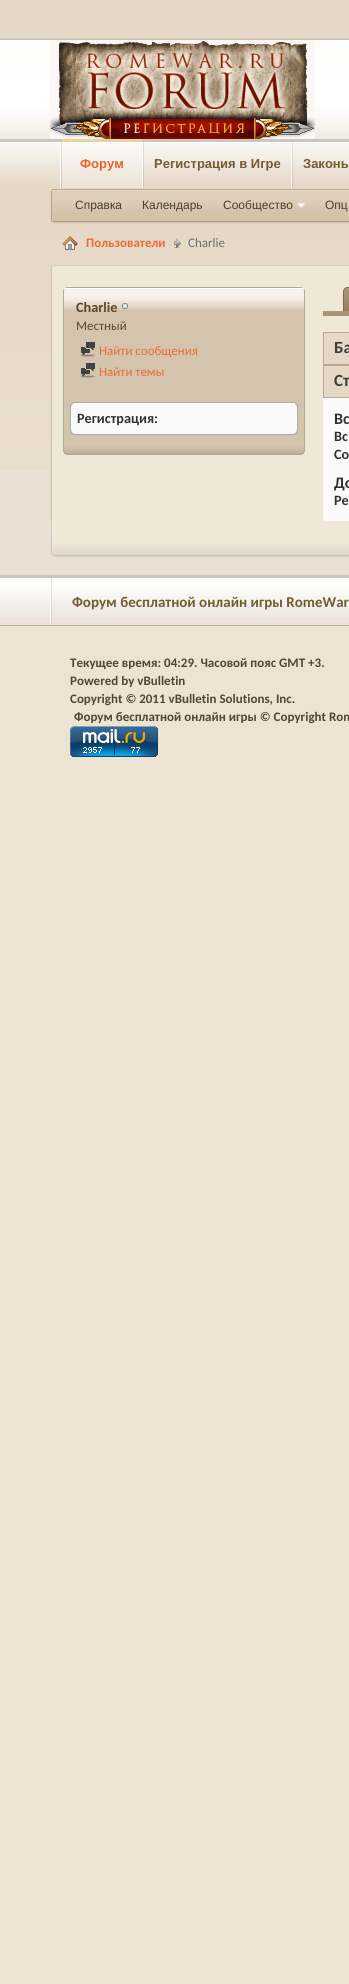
#include <cairo.h>
#include <math.h>
#include <stddef.h>

static cairo_t *c;
static void C(unsigned color){cairo_set_source_rgb(c, (color >> 16) / 255.0, (color >> 8 & 255) / 255.0, (color & 255) / 255.0);}
static void F(const char *family, double size, int italic, int bold){cairo_select_font_face(c, family, italic ? CAIRO_FONT_SLANT_ITALIC : CAIRO_FONT_SLANT_NORMAL,bold ? CAIRO_FONT_WEIGHT_BOLD : CAIRO_FONT_WEIGHT_NORMAL);cairo_set_font_size(c, size);}
static void T(double x, double y, const char *s){cairo_move_to(c, x, y);cairo_show_text(c, s);}
static void R(double x, double y, double w, double h){cairo_rectangle(c, x, y, w, h);cairo_fill(c);}
static void Q(double x, double y, double w, double h, double r){cairo_new_sub_path(c);cairo_arc(c, x + w - r, y + h - r, r, 0, M_PI / 2);cairo_arc(c, x + r, y + h - r, r, M_PI / 2, M_PI);cairo_arc(c, x + r, y + r, r, M_PI, 1.5 * M_PI);cairo_arc(c, x + w - r, y + r, r, 1.5 * M_PI, 2 * M_PI);cairo_close_path(c);}
static void I(const char *path, double x, double y, double w, double h){cairo_surface_t *image = cairo_image_surface_create_from_png(path);cairo_save(c);cairo_set_source_surface(c, image, x, y);cairo_rectangle(c, x, y, w, h);cairo_fill(c);cairo_restore(c);cairo_surface_destroy(image);}
int main(void) {
cairo_surface_t *surface = cairo_image_surface_create(CAIRO_FORMAT_RGB24, 349, 1984);
c = cairo_create(surface);
cairo_font_options_t *options = cairo_font_options_create();
cairo_font_options_set_hint_metrics(options, CAIRO_HINT_METRICS_OFF);
cairo_font_options_set_hint_style(options, CAIRO_HINT_STYLE_NONE);
cairo_set_font_options(c, options);
cairo_set_miter_limit(c, 4);
C(0xece3d3);
cairo_paint(c);
I("1.png",0,0,349,40);
I("2.png",0,40,349,99);
I("3.png",50,40,265,99);
C(0xebe0d3);
R(0,470,349,105);
I("4.png",0,139,349,331);
I("5.png",50,139,299,85);
I("6.png",50,189,3,35);
I("7.png",60,142,2,47);
I("8.png",142,139,151,3);
I("7.png",142,142,2,47);
I("9.png",62,139,80,50);
F("Liberation Sans",13,0,1);
C(0xeb612c);
T(80,168,"Форум");
I("7.png",291,142,2,47);
I("10.png",144,139,147,50);
C(0x745b32);
T(154,168,"Регистрация в Игре");
I("11.png",293,139,56,50);
T(303,168,"Законы");
F("Liberation Sans",12,0,0);
C(0x4a3e2c);
T(75,209,"Справка");
T(142,209,"Календарь");
T(223,209,"Сообщество");
I("12.png",297,202,9,6);
T(325,209,"Опц");
I("13.png",62,236,16,14);
I("14.png",174,238,7,10);
F("Carlito",13,0,1);
C(0xed6a32);
T(86,247,"Пользователи");
F("Carlito",13,0,0);
C(0x6d6d6d);
T(188,247,"Charlie");
C(0xf0e8d7);
R(52,266,297,278);
I("15.png",55,544,294,14);
C(0xd9cdbd);
R(50,265,299,1);
I("16.png",50,265,2,255);
I("17.png",51,265,4,4);
I("18.png",50,520,5,38);
C(0xd5c4ad);
Q(63,287,242,168,5);
cairo_fill(c);
I("19.png",63,289,242,21);
Q(63.5,287.5,241,167,4.5);
C(0xb0a99f);
cairo_set_line_width(c,1);
cairo_stroke(c);
I("20.png",64,288,240,22);
F("Carlito",14.25,0,1);
C(0x5b472b);
T(76,312,"Charlie");
I("21.png",122,303,6,6);
F("Carlito",13,0,0);
T(76,330,"Местный");
I("22.png",80,342,15,15);
C(0xed6a32);
T(99,355,"Найти сообщения");
I("22.png",80,363,15,15);
T(99,376,"Найти темы");
Q(70.5,402.5,227,32,4.5);
C(0xb0a99f);
cairo_stroke(c);
C(0xfafafa);
Q(71,403,226,31,5);
cairo_fill(c);
R(74,403,221,1);
F("Carlito",14.25,0,1);
C(0x333333);
T(77,423,"Регистрация:");
I("23.png",64,447,240,7);
C(0x987e59);
cairo_new_path(c);
cairo_move_to(c,348,288);
cairo_line_to(c,349,288);
cairo_curve_to(c,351,288,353,290,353,292);
cairo_line_to(c,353,311);
cairo_line_to(c,344,311);
cairo_line_to(c,344,292);
cairo_curve_to(c,344,290,346,288,348,288);
cairo_close_path(c);
cairo_fill(c);
I("24.png",343,288,6,20);
C(0x7f6842);
cairo_set_fill_rule(c,CAIRO_FILL_RULE_EVEN_ODD);
cairo_new_path(c);
cairo_move_to(c,348,287);
cairo_line_to(c,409,287);
cairo_curve_to(c,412,287,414,289,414,292);
cairo_line_to(c,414,311);
cairo_line_to(c,343,311);
cairo_line_to(c,343,292);
cairo_curve_to(c,343,289,345,287,348,287);
cairo_close_path(c);
cairo_move_to(c,348,288);
cairo_line_to(c,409,288);
cairo_curve_to(c,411,288,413,290,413,292);
cairo_line_to(c,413,311);
cairo_line_to(c,344,311);
cairo_line_to(c,344,292);
cairo_curve_to(c,344,290,346,288,348,288);
cairo_close_path(c);
cairo_fill(c);
C(0x987e59);
R(323,311,26,5);
I("25.png",323,311,26,5);
C(0xe6d8c6);
cairo_rectangle(c,323.5,332.5,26,32);
cairo_fill_preserve(c);
C(0xbba88e);
cairo_stroke(c);
F("Carlito",17,0,1);
C(0x3e3e3e);
T(334,353,"Ба");
C(0xe6d8c6);
cairo_rectangle(c,323.5,365.5,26,32);
cairo_fill_preserve(c);
C(0xbba88e);
cairo_stroke(c);
C(0x3e3e3e);
T(334,386,"Ст");
C(0xfafafa);
R(323,398,26,123);
F("Carlito",16,0,1);
C(0x333333);
T(334,424,"Вс");
F("Carlito",14.25,0,1);
T(334,441,"Вс");
T(334,459,"Со");
F("Carlito",16,0,1);
T(334,488,"До");
F("Carlito",14.25,0,1);
T(334,505,"Ре");
I("26.png",0,575,349,51);
I("27.png",50,578,2,45);
F("Carlito",15,0,1);
C(0x745b32);
T(72,607,"Форум бесплатной онлайн игры RomeWar");
F("Carlito",13,0,1);
C(0x534531);
T(70,667,"Текущее время: 04:29. Часовой пояс GMT +3.");
T(70,685,"Powered by vBulletin");
T(70,703,"Copyright © 2011 vBulletin Solutions, Inc.");
T(74,721,"Форум бесплатной онлайн игры © Copyright Rom");
I("28.png",70,726,88,31);
cairo_surface_write_to_png(surface, "o.png");
cairo_font_options_destroy(options);
cairo_destroy(c);
cairo_surface_destroy(surface);
return 0;
}
